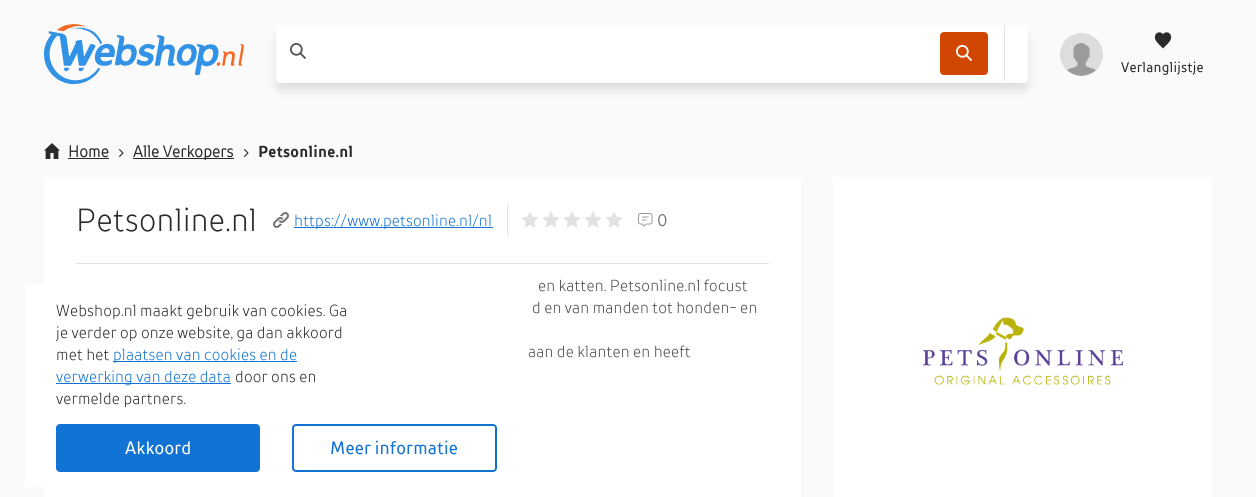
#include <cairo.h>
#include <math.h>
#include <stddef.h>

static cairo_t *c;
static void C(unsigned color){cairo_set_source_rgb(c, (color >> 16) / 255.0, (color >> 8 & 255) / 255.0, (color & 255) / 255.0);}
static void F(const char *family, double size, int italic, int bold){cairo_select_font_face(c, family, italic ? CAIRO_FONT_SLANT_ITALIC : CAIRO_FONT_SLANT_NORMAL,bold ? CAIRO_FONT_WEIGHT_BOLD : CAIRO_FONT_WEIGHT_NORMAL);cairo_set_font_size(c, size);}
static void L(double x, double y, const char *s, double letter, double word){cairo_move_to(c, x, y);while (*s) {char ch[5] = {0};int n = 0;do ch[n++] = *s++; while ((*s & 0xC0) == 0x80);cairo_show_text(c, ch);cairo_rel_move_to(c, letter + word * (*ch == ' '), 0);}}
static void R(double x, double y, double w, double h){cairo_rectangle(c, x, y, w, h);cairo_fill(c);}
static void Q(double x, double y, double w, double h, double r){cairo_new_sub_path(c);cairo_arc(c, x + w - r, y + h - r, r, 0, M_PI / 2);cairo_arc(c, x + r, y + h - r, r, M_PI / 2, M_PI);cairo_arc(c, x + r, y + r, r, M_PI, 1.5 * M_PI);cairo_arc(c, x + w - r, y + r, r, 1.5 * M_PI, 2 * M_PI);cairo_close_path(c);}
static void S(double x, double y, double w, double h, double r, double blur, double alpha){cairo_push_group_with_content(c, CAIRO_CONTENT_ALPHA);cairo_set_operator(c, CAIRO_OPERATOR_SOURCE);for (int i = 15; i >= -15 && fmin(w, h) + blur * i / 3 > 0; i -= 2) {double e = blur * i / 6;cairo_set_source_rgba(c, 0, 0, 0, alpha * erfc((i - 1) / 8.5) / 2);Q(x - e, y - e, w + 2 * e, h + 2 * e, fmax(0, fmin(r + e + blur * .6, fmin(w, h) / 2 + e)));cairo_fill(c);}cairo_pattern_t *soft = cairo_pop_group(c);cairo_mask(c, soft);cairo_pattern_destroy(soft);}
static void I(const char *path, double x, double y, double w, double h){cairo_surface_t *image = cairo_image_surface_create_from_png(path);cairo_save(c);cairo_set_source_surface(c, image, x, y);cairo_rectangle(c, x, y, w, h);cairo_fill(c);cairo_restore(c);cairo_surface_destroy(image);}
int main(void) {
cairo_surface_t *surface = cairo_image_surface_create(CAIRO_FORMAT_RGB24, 1256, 497);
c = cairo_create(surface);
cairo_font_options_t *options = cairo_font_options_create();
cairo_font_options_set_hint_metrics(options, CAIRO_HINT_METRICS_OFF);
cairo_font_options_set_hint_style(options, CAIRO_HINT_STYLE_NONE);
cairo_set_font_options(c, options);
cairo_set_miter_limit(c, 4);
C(0xfafafa);
cairo_paint(c);
I("1.png",44,24,200,60);
C(0x000000);
S(276,33,752,58,4,4,.1);
C(0xffffff);
Q(276,25,752,58,4);
cairo_fill(c);
I("2.png",290,43,16,16);
C(0xd14600);
Q(940,32,48,43,4);
cairo_fill(c);
I("3.png",956,45,16,16);
C(0xe2e2e2);
R(1004,25,1,56);
cairo_arc(c,1081.5,54.5,21.5,0,2 * M_PI);
cairo_fill(c);
I("4.png",1060,33,43,43);
I("5.png",1154,32,18,17);
F("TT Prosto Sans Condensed",14,0,0);
C(0x2a2a2a);
L(1121,72,"Verlanglijstje",.2,0);
I("6.png",44,143,16,16);
F("TT Prosto Sans Condensed",16,0,1);
L(68,157,"Home",.2,0);
R(68,158,41,1);
I("7.png",119,149,5,8);
R(133,158,101,1);
L(133,157,"Alle Verkopers",.2,0);
I("7.png",244,149,5,8);
F("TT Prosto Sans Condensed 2",16,0,1);
L(258,157,"Petsonline.nl",.2,0);
C(0xffffff);
R(44,177,757,320);
F("TT Prosto Sans Condensed Light",32,0,0);
C(0x2a2a2a);
L(76,231,"Petsonline.nl",.4,0);
I("8.png",273,212,16,16);
C(0x1173d4);
R(294,227,199,1);
F("TT Prosto Sans Condensed Light",16,0,0);
L(294,226,"https://www.petsonline.nl/nl",.2,0);
C(0xe2e2e2);
R(507,205,1,30);
I("9.png",522,212,16,16);
I("9.png",543,212,16,16);
I("9.png",564,212,16,16);
I("9.png",585,212,16,16);
I("9.png",606,212,16,16);
I("10.png",638,213,15,14);
F("TT Prosto Sans Condensed",16,0,1);
C(0x757575);
L(657,226,"0",.2,0);
C(0xe2e2e2);
R(76,263,693,1);
F("TT Prosto Sans Condensed Light",16,0,0);
C(0x4a4a4a);
L(538,291,"en katten. Petsonline.nl focust",.2,0);
L(532,313,"d en van manden tot honden- en",.2,0);
L(528,357,"aan de klanten en heeft",.2,0);
C(0xffffff);
R(833,177,379,320);
I("11.png",923,317,200,68);
R(25,284,19,203);
C(0x2a2a2a);
L(56,316,"Webshop.nl maakt gebruik van cookies. Ga",.2,0);
L(56,338,"je verder op onze website, ga dan akkoord",.2,0);
L(56,360,"met het",.2,0);
C(0x1173d4);
R(113,361,184,1);
L(113,360,"plaatsen van cookies en de",.2,0);
R(56,383,175,1);
L(56,382,"verwerking van deze data",.2,0);
C(0x2a2a2a);
L(235,382,"door ons en",.2,0);
L(56,404,"vermelde partners.",.2,0);
C(0x1173d4);
Q(56,424,204,48,4);
cairo_fill(c);
F("TT Prosto Sans Condensed",18,0,0);
C(0xffffff);
L(125,454,"Akkoord",.2,0);
Q(293,425,203,46,3);
C(0x1173d4);
cairo_stroke(c);
L(330,454,"Meer informatie",.2,0);
cairo_surface_write_to_png(surface, "o.png");
cairo_font_options_destroy(options);
cairo_destroy(c);
cairo_surface_destroy(surface);
return 0;
}
